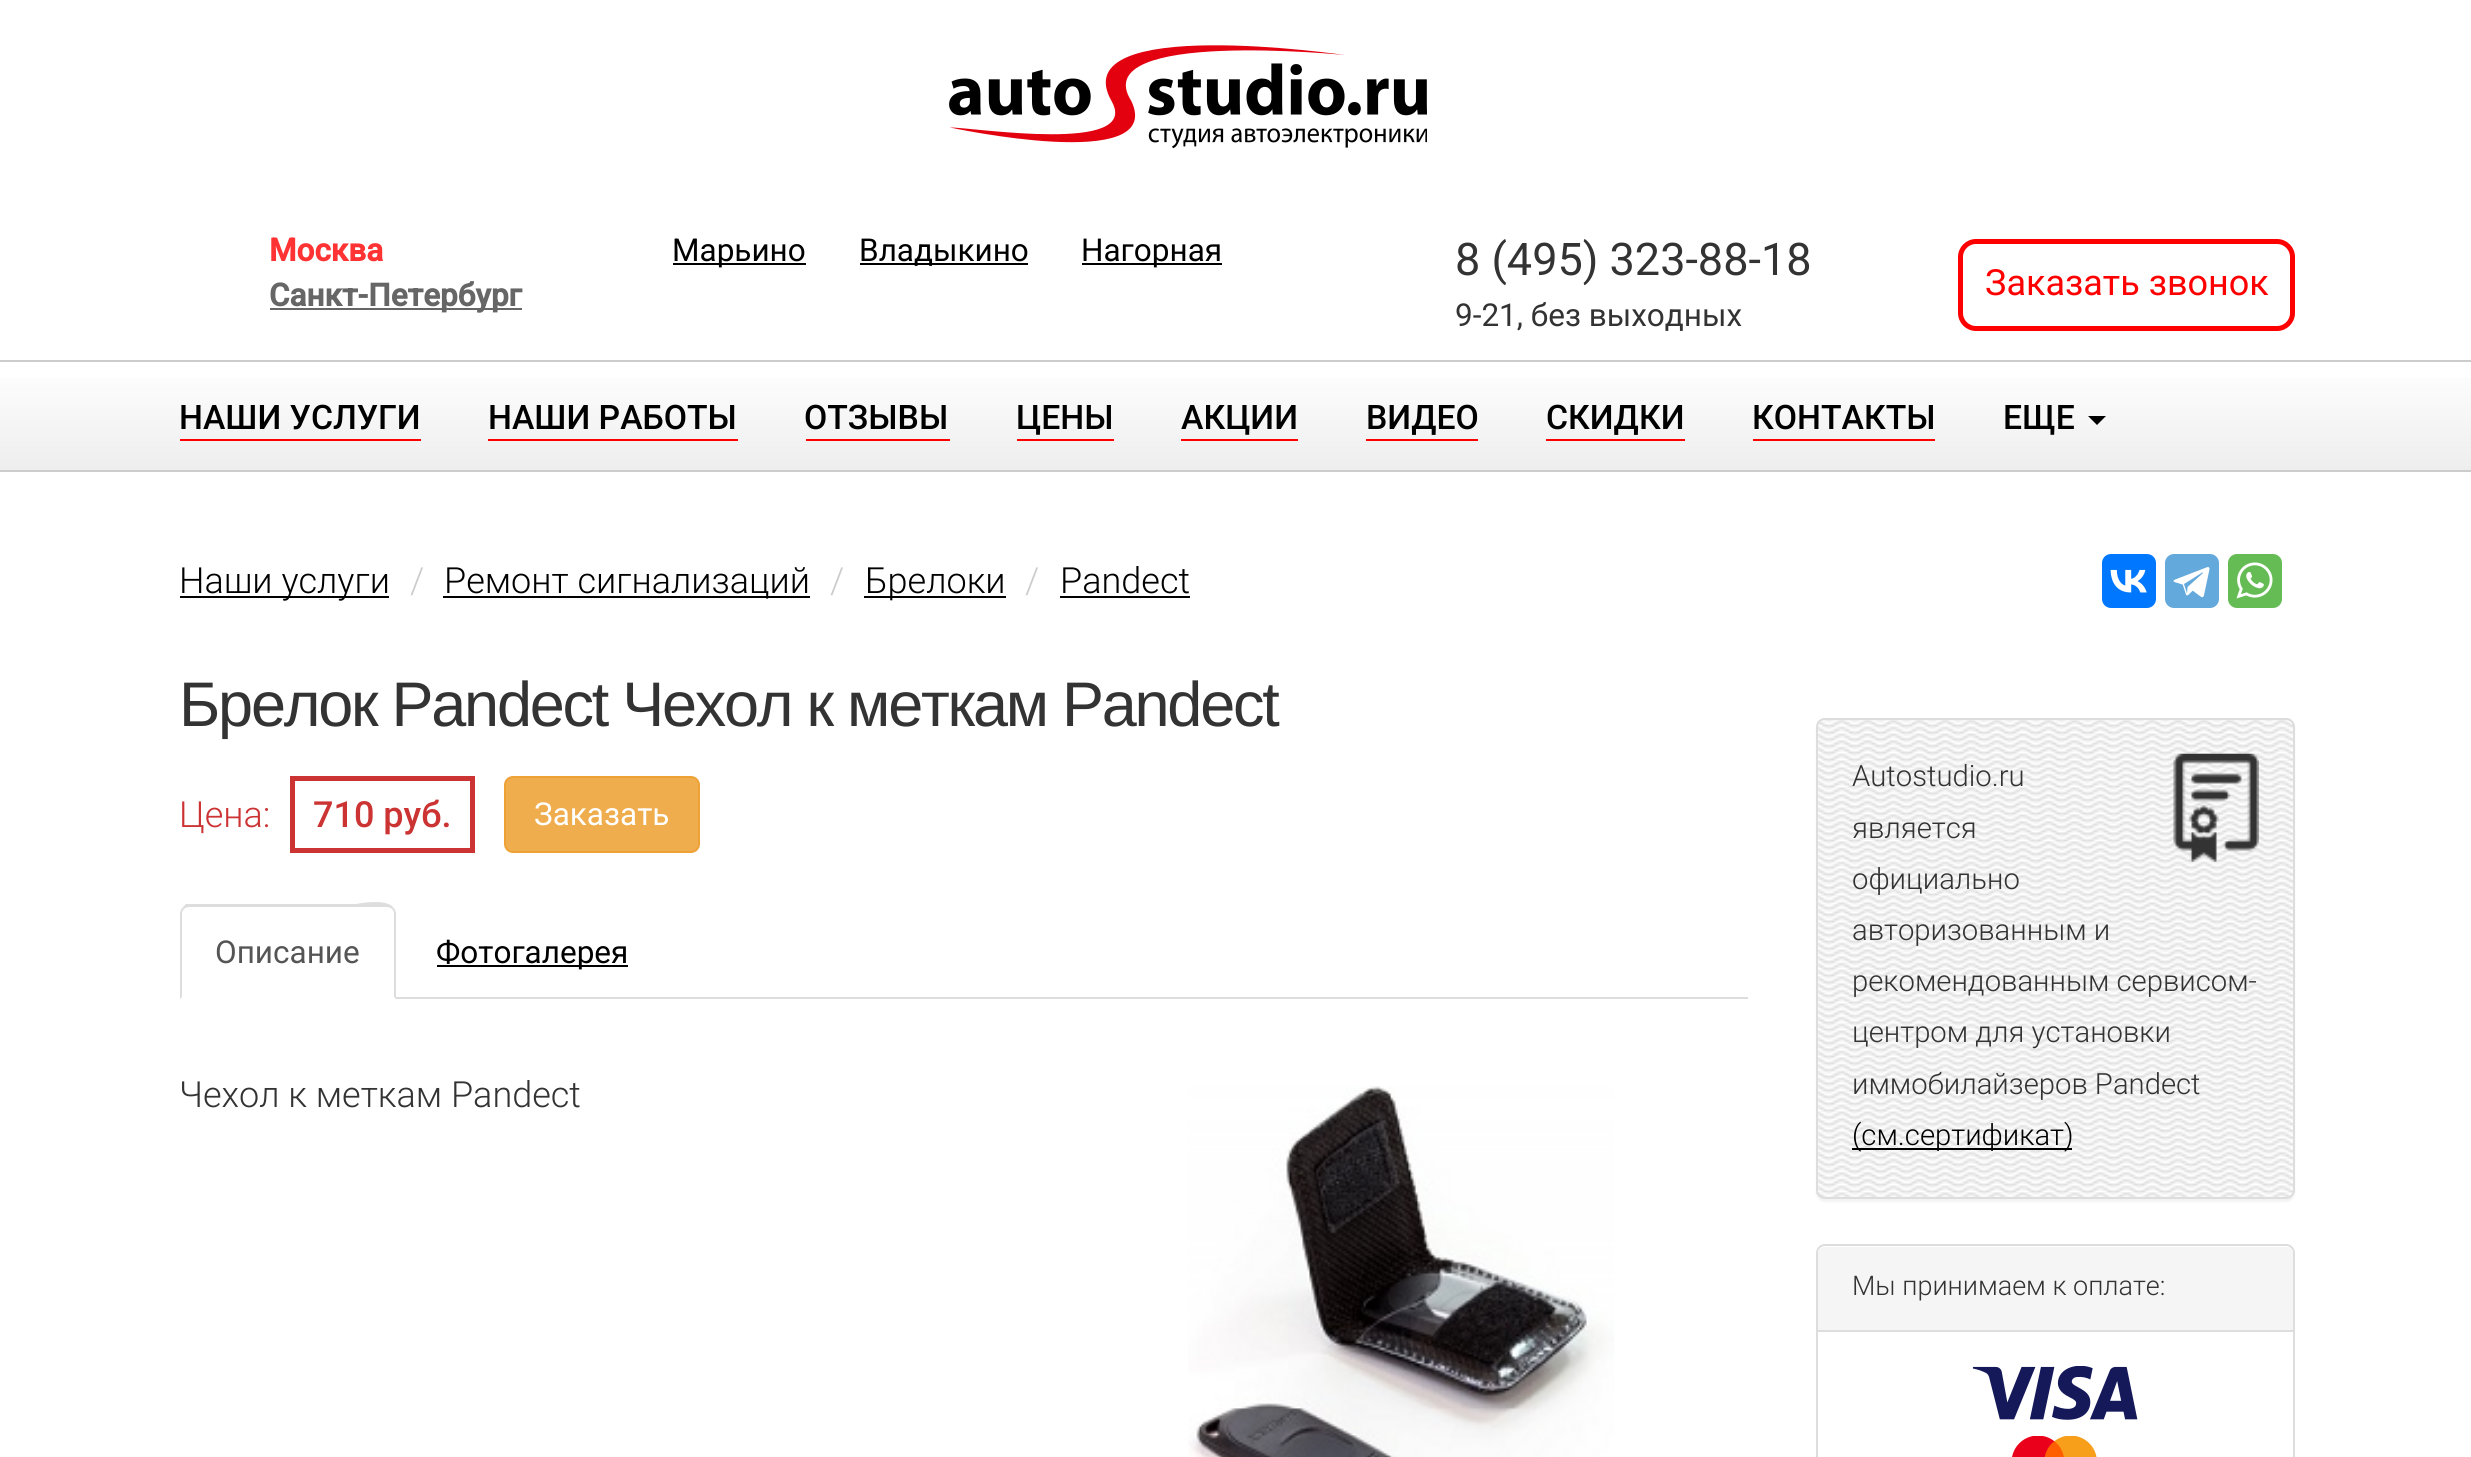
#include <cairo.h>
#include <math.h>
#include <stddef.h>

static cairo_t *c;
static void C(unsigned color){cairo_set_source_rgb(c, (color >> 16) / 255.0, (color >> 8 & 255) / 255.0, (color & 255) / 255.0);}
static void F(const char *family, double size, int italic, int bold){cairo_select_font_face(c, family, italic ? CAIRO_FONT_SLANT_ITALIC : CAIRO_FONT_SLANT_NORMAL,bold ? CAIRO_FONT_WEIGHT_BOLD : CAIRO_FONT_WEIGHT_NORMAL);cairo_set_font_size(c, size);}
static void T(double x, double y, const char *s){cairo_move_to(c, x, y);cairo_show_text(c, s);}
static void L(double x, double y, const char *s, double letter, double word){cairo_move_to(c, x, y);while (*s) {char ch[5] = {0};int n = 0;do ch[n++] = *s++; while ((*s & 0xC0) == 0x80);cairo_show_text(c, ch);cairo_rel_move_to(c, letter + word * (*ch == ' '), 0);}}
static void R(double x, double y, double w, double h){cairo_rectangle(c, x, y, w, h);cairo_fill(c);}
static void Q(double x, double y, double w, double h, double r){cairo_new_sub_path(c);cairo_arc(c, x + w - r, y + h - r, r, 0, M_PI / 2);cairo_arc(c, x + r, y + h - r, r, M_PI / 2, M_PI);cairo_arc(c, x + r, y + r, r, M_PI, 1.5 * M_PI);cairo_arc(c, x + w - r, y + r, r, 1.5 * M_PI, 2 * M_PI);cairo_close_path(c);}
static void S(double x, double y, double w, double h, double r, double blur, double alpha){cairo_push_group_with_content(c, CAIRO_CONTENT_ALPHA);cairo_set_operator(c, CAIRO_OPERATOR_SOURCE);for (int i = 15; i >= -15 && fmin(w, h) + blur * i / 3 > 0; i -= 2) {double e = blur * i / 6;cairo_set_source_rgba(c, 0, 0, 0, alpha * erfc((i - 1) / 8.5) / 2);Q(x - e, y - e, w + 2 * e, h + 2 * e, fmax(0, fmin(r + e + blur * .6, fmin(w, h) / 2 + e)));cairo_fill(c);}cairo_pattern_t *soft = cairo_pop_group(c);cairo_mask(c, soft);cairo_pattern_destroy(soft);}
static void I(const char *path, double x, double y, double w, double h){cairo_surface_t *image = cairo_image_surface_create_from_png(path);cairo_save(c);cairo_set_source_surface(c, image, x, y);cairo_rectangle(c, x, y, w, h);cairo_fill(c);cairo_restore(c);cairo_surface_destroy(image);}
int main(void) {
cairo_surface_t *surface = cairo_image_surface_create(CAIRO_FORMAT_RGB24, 2471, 1457);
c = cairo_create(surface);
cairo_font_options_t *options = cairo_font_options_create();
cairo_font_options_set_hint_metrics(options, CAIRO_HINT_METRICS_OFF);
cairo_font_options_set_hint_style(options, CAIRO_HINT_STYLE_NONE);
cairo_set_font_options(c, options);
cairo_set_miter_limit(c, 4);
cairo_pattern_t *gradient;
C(0xffffff);
cairo_paint(c);
I("1.png",949,45,478,104);
F("Roboto",31.5,0,1);
C(0xff3333);
T(269,261,"Москва");
C(0x666666);
R(270,308,252,2);
T(269,306,"Санкт-Петербург");
C(0x000000);
R(673,263,133,2);
F("Roboto",31.5,0,0);
T(672,261,"Марьино");
R(860,263,168,2);
T(859,261,"Владыкино");
R(1082,263,140,2);
T(1081,261,"Нагорная");
F("Roboto",45,0,0);
C(0x333333);
T(1455,275,"8 (495) 323-88-18");
F("Roboto",31.5,0,0);
T(1455,326,"9-21, без выходных");
Q(1960.5,241.5,332,87,15.5);
C(0xff0000);
cairo_set_line_width(c,5);
cairo_stroke(c);
F("Roboto",36,0,0);
T(1985,295,"Заказать звонок");
gradient = cairo_pattern_create_linear(1236,362,1236,470);
cairo_pattern_add_color_stop_rgba(gradient,0,1,1,1,1);
cairo_pattern_add_color_stop_rgba(gradient,1,0.933,0.933,0.933,1);
cairo_set_source(c,gradient);
cairo_pattern_destroy(gradient);
R(0,378,2471,92);
C(0xcccccc);
R(0,360,2471,2);
R(0,470,2471,2);
F("Roboto Medium",33.75,0,0);
C(0x000000);
T(179,429,"НАШИ УСЛУГИ");
C(0xff0000);
R(180,439,241,2);
C(0x000000);
T(488,429,"НАШИ РАБОТЫ");
C(0xff0000);
R(488,439,250,2);
C(0x000000);
T(804,429,"ОТЗЫВЫ");
C(0xff0000);
R(806,439,144,2);
C(0x000000);
T(1016,429,"ЦЕНЫ");
C(0xff0000);
R(1017,439,97,2);
C(0x000000);
T(1181,429,"АКЦИИ");
C(0xff0000);
R(1181,439,117,2);
C(0x000000);
T(1366,429,"ВИДЕО");
C(0xff0000);
R(1366,439,112,2);
C(0x000000);
T(1546,429,"СКИДКИ");
C(0xff0000);
R(1546,439,139,2);
C(0x000000);
T(1752,429,"КОНТАКТЫ");
C(0xff0000);
R(1753,439,182,2);
C(0x000000);
T(2003,429,"ЕЩЕ");
cairo_new_path(c);
cairo_move_to(c,2088,416);
cairo_line_to(c,2106,416);
cairo_line_to(c,2097,425);
cairo_close_path(c);
cairo_fill(c);
R(180,596,209,2);
F("Roboto Light",36,0,0);
T(179,593,"Наши услуги");
C(0xcccccc);
T(410,593,"/");
C(0x000000);
R(443,596,367,2);
T(444,593,"Ремонт сигнализаций");
C(0xcccccc);
T(830,593,"/");
C(0x000000);
R(864,596,142,2);
T(865,593,"Брелоки");
C(0xcccccc);
T(1025,593,"/");
C(0x000000);
T(1060,593,"Pandect");
R(1060,596,130,2);
C(0x0077ff);
Q(2102,554,54,54,9);
cairo_fill(c);
I("2.png",2110,569,37,24);
C(0x64a9dc);
Q(2165,554,54,54,9);
cairo_fill(c);
I("3.png",2173,567,37,31);
C(0x65bc54);
Q(2228,554,54,54,9);
cairo_fill(c);
I("4.png",2236,562,37,37);
F("Liberation Sans",63,0,0);
C(0x333333);
L(179,726,"Брелок Pandect Чехол к меткам Pandect",-2.25,0);
F("Roboto Light",36,0,0);
C(0xcc3333);
T(179,827,"Цена:");
cairo_rectangle(c,292.5,778.5,180,72);
cairo_stroke(c);
F("Roboto Medium",36,0,0);
T(313,827,"710 руб.");
C(0xf0ad4e);
Q(505,777,194,75,8);
cairo_fill_preserve(c);
C(0xeea236);
cairo_set_line_width(c,2);
cairo_stroke(c);
F("Roboto",31.5,0,0);
C(0xffffff);
T(534,825,"Заказать");
C(0xdddddd);
R(396,997,1352,2);
cairo_new_path(c);
cairo_move_to(c,189,907);
cairo_curve_to(c,187,907,185,908,184,909);
cairo_line_to(c,183,907);
cairo_line_to(c,186,904);
cairo_line_to(c,356,904);
cairo_curve_to(c,356,904,385,898,393,907);
cairo_line_to(c,392,909);
cairo_curve_to(c,391,908,389,907,387,907);
cairo_close_path(c);
cairo_fill(c);
cairo_new_path(c);
cairo_move_to(c,396,999);
cairo_line_to(c,396,914);
cairo_curve_to(c,396,912,395,909,393,907);
cairo_line_to(c,392,909);
cairo_line_to(c,394,912);
cairo_line_to(c,394,997);
cairo_close_path(c);
cairo_fill(c);
cairo_new_path(c);
cairo_move_to(c,180,999);
cairo_line_to(c,182,997);
cairo_line_to(c,182,912);
cairo_line_to(c,184,909);
cairo_line_to(c,183,907);
cairo_curve_to(c,181,909,180,912,180,914);
cairo_close_path(c);
cairo_fill(c);
C(0x555555);
T(215,963,"Описание");
C(0x000000);
R(437,965,191,2);
T(436,963,"Фотогалерея");
F("Roboto Light",36,0,0);
C(0x333333);
T(179,1107,"Чехол к меткам Pandect");
I("5.png",1188,1086,426,371);
C(0x000000);
S(1816,720,479,482,9,1,.05);
I("6.png",1816,718,479,481);
Q(1817,719,477,479,8);
C(0xdddddd);
cairo_stroke(c);
F("Roboto Light",29.25,0,0);
C(0x333333);
T(1852,786,"Autostudio.ru");
I("7.png",2173,753,86,109);
T(1852,838,"является");
T(1852,889,"официально");
T(1852,940,"авторизованным и");
T(1852,991,"рекомендованным сервисом-");
T(1852,1042,"центром для установки");
T(1852,1094,"иммобилайзеров Pandect");
C(0x000000);
R(1852,1148,220,2);
T(1852,1145,"(см.сертификат)");
Q(1817,1245,477,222,8);
C(0xdddddd);
cairo_stroke(c);
C(0xf5f5f5);
cairo_new_path(c);
cairo_move_to(c,1825,1247);
cairo_line_to(c,2286,1247);
cairo_curve_to(c,2290,1247,2293,1250,2293,1254);
cairo_line_to(c,2293,1332);
cairo_line_to(c,1818,1332);
cairo_line_to(c,1818,1254);
cairo_curve_to(c,1818,1250,1821,1247,1825,1247);
cairo_close_path(c);
cairo_fill(c);
C(0xdddddd);
R(1818,1330,475,2);
F("Roboto Light",27,0,0);
C(0x333333);
T(1852,1295,"Мы принимаем к оплате:");
I("8.png",1972,1366,166,54);
I("9.png",2012,1436,85,21);
cairo_surface_write_to_png(surface, "o.png");
cairo_font_options_destroy(options);
cairo_destroy(c);
cairo_surface_destroy(surface);
return 0;
}
